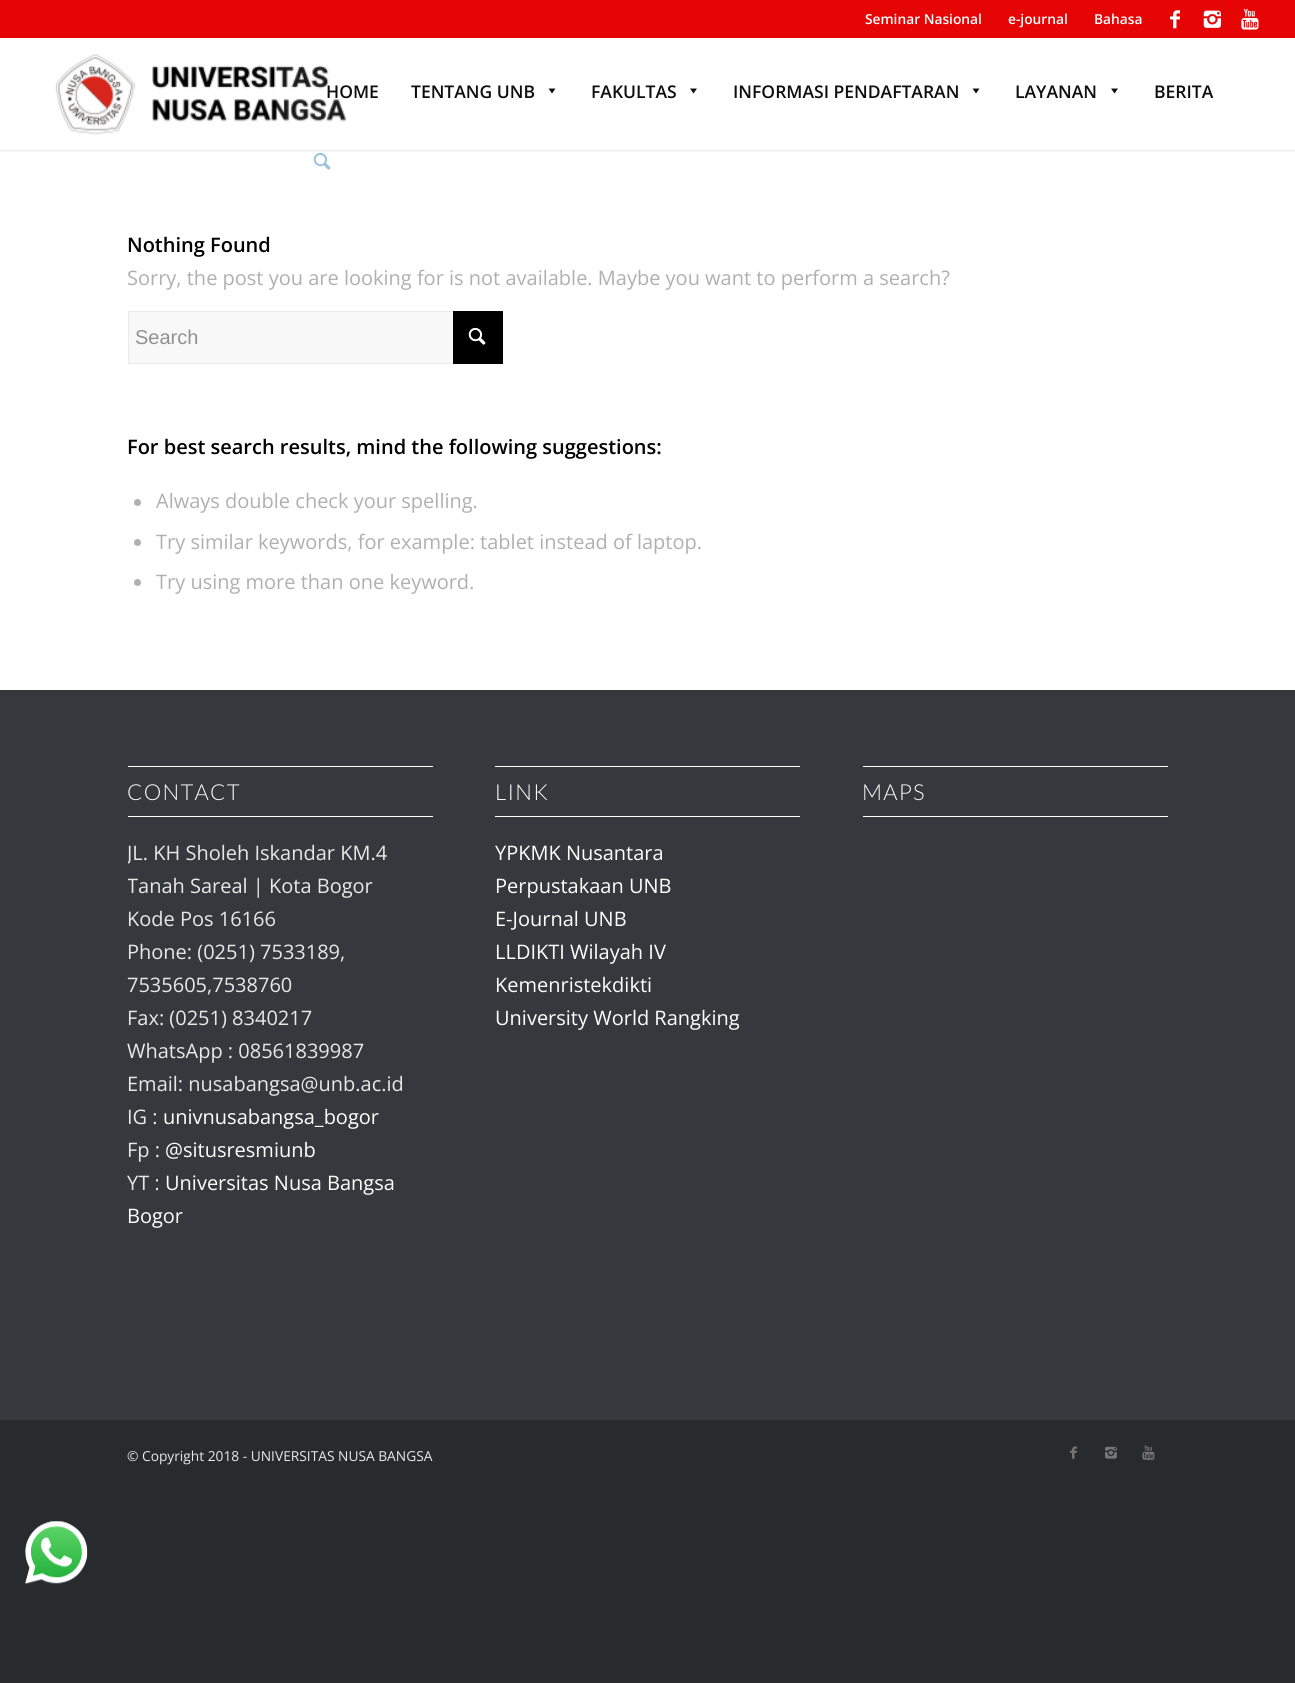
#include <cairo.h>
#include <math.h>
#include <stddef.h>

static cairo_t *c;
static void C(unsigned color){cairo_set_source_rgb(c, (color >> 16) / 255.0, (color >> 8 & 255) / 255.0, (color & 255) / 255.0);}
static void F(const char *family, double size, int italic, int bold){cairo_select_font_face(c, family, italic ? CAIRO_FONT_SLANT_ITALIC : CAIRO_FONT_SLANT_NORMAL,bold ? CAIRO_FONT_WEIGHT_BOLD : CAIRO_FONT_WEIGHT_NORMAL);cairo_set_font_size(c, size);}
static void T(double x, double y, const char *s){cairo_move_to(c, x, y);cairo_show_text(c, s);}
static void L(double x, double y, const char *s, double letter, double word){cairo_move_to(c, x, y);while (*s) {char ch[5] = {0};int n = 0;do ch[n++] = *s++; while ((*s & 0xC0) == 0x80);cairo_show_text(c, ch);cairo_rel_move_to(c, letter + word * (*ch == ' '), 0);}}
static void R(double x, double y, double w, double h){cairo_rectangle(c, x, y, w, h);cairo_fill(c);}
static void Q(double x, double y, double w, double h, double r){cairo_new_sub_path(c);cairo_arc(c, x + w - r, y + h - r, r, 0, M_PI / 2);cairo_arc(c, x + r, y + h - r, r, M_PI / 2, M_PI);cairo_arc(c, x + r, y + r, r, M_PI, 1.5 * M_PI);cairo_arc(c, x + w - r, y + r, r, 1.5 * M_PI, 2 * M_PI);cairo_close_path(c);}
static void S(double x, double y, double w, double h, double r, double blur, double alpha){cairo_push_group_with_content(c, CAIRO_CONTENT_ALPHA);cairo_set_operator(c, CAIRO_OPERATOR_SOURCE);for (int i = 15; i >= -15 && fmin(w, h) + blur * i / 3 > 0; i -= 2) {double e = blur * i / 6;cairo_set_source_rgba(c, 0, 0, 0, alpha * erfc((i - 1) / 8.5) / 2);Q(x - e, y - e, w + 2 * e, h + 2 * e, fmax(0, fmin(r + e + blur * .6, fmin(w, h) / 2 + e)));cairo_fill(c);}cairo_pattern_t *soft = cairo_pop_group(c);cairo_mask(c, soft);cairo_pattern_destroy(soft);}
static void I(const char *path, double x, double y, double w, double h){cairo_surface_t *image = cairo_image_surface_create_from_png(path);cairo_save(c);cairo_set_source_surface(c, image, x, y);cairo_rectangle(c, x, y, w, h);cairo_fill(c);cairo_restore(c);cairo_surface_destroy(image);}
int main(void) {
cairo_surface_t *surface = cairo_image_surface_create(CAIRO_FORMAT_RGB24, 1295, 1683);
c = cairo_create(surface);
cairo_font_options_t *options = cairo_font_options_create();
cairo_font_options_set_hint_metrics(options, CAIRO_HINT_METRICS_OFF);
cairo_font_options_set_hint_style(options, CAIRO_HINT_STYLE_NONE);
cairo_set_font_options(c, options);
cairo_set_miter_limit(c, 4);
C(0x282b2e);
cairo_paint(c);
C(0xffffff);
R(0,38,1295,652);
cairo_save(c);
cairo_rectangle(c,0,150,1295,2);
cairo_clip(c);
C(0x000000);
S(-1,-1,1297,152,0,1,.1);
cairo_restore(c);
C(0xe60505);
R(0,0,1295,38);
C(0xeb0000);
R(995,13,1,12);
F("Open Sans SemiBold",13.75,0,0);
C(0xffffff);
T(865,24,"Seminar Nasional");
C(0xeb0000);
R(1081,13,1,12);
C(0xffffff);
T(1008,24,"e-journal");
T(1094,24,"Bahasa");
C(0xeb0000);
R(1193,0,1,38);
I("1.png",1170,10,10,19);
R(1230,0,1,38);
I("2.png",1203,10,18,18);
I("3.png",1241,8,18,22);
I("4.png",55,53,292,82);
cairo_set_source_rgba(c,1,1,1,0.1);
R(276,66,70,55);
F("Open Sans SemiBold",17.5,0,0);
C(0x0e0e0e);
T(326,98,"HOME");
T(411,98,"TENTANG UNB");
cairo_new_path(c);
cairo_move_to(c,555.5,88.5);
cairo_line_to(c,552,93.5);
cairo_line_to(c,548.5,88.5);
cairo_close_path(c);
cairo_fill(c);
T(591,98,"FAKULTAS");
cairo_new_path(c);
cairo_move_to(c,697,88.5);
cairo_line_to(c,693.5,93.5);
cairo_line_to(c,690,88.5);
cairo_close_path(c);
cairo_fill(c);
T(733,98,"INFORMASI PENDAFTARAN");
cairo_new_path(c);
cairo_move_to(c,979.5,88.5);
cairo_line_to(c,976,93.5);
cairo_line_to(c,972.5,88.5);
cairo_close_path(c);
cairo_fill(c);
T(1015,98,"LAYANAN");
cairo_new_path(c);
cairo_move_to(c,1118,88.5);
cairo_line_to(c,1114.5,93.5);
cairo_line_to(c,1111,88.5);
cairo_close_path(c);
cairo_fill(c);
T(1154,98,"BERITA");
I("5.png",313,152,18,18);
F("Open Sans SemiBold",20,0,0);
C(0x000000);
T(127,252,"Nothing Found");
F("Open Sans",20,0,0);
C(0xb0b0b0);
T(127,285,"Sorry, the post you are looking for is not available. Maybe you want to perform a search?");
C(0xf8f8f8);
R(129,312,324,51);
cairo_rectangle(c,128.5,311.5,374,52);
C(0xebebeb);
cairo_set_line_width(c,1);
cairo_stroke(c);
F("Liberation Sans",20,0,0);
C(0x919191);
T(135,344,"Search");
C(0x000000);
R(453,311,50,53);
I("6.png",468,327,18,18);
F("Open Sans SemiBold",20,0,0);
T(127,454,"For best search results, mind the following suggestions:");
C(0xb0b0b0);
cairo_new_path(c);
cairo_arc(c,137.5,502.5,3.5,0,2 * M_PI);
cairo_fill(c);
F("Open Sans",20,0,0);
T(156,508,"Always double check your spelling.");
cairo_new_path(c);
cairo_arc(c,137.5,542.5,3.5,0,2 * M_PI);
cairo_fill(c);
T(156,549,"Try similar keywords, for example: tablet instead of laptop.");
cairo_new_path(c);
cairo_arc(c,137.5,582.5,3.5,0,2 * M_PI);
cairo_fill(c);
T(156,589,"Try using more than one keyword.");
C(0x35383c);
R(0,690,1295,730);
C(0xffffff);
R(128,766,305,1);
R(128,816,305,1);
F("Lato Light",22,0,0);
L(127,800,"CONTACT",1.25,0);
cairo_save(c);
cairo_rectangle(c,128,836,305,397);
cairo_clip(c);
F("Open Sans",20,0,0);
C(0xe8e8e8);
T(127,860,"JL. KH Sholeh Iskandar KM.4");
T(127,893,"Tanah Sareal | Kota Bogor");
cairo_restore(c);
F("Open Sans",20,0,0);
C(0xe8e8e8);
T(127,926,"Kode Pos 16166");
T(127,959,"Phone: (0251) 7533189,");
T(127,992,"7535605,7538760");
T(127,1025,"Fax: (0251) 8340217");
T(127,1058,"WhatsApp : 08561839987");
T(127,1091,"Email: nusabangsa@unb.ac.id");
T(127,1124,"IG :");
C(0xffffff);
T(163,1124,"univnusabangsa_bogor");
C(0xe8e8e8);
T(127,1157,"Fp :");
C(0xffffff);
T(165,1157,"@situsresmiunb");
C(0xe8e8e8);
T(127,1190,"YT :");
C(0xffffff);
T(165,1190,"Universitas Nusa Bangsa");
T(127,1223,"Bogor");
R(495,766,305,1);
R(495,816,305,1);
F("Lato Light",22,0,0);
L(495,800,"LINK",1.25,0);
F("Open Sans",20,0,0);
T(495,860,"YPKMK Nusantara");
T(495,893,"Perpustakaan UNB");
T(495,926,"E-Journal UNB");
T(495,959,"LLDIKTI Wilayah IV");
T(495,992,"Kemenristekdikti");
T(495,1025,"University World Rangking");
R(863,766,305,1);
R(863,816,305,1);
F("Lato Light",22,0,0);
L(862,800,"MAPS",1.25,0);
F("Open Sans",13.75,0,0);
C(0xe8e8e8);
T(127,1461,"© Copyright 2018 - UNIVERSITAS NUSA BANGSA");
I("7.png",1070,1446,7,13);
I("8.png",1105,1446,12,13);
I("9.png",1142,1445,13,15);
I("10.png",25,1521,63,64);
cairo_surface_write_to_png(surface, "o.png");
cairo_font_options_destroy(options);
cairo_destroy(c);
cairo_surface_destroy(surface);
return 0;
}
